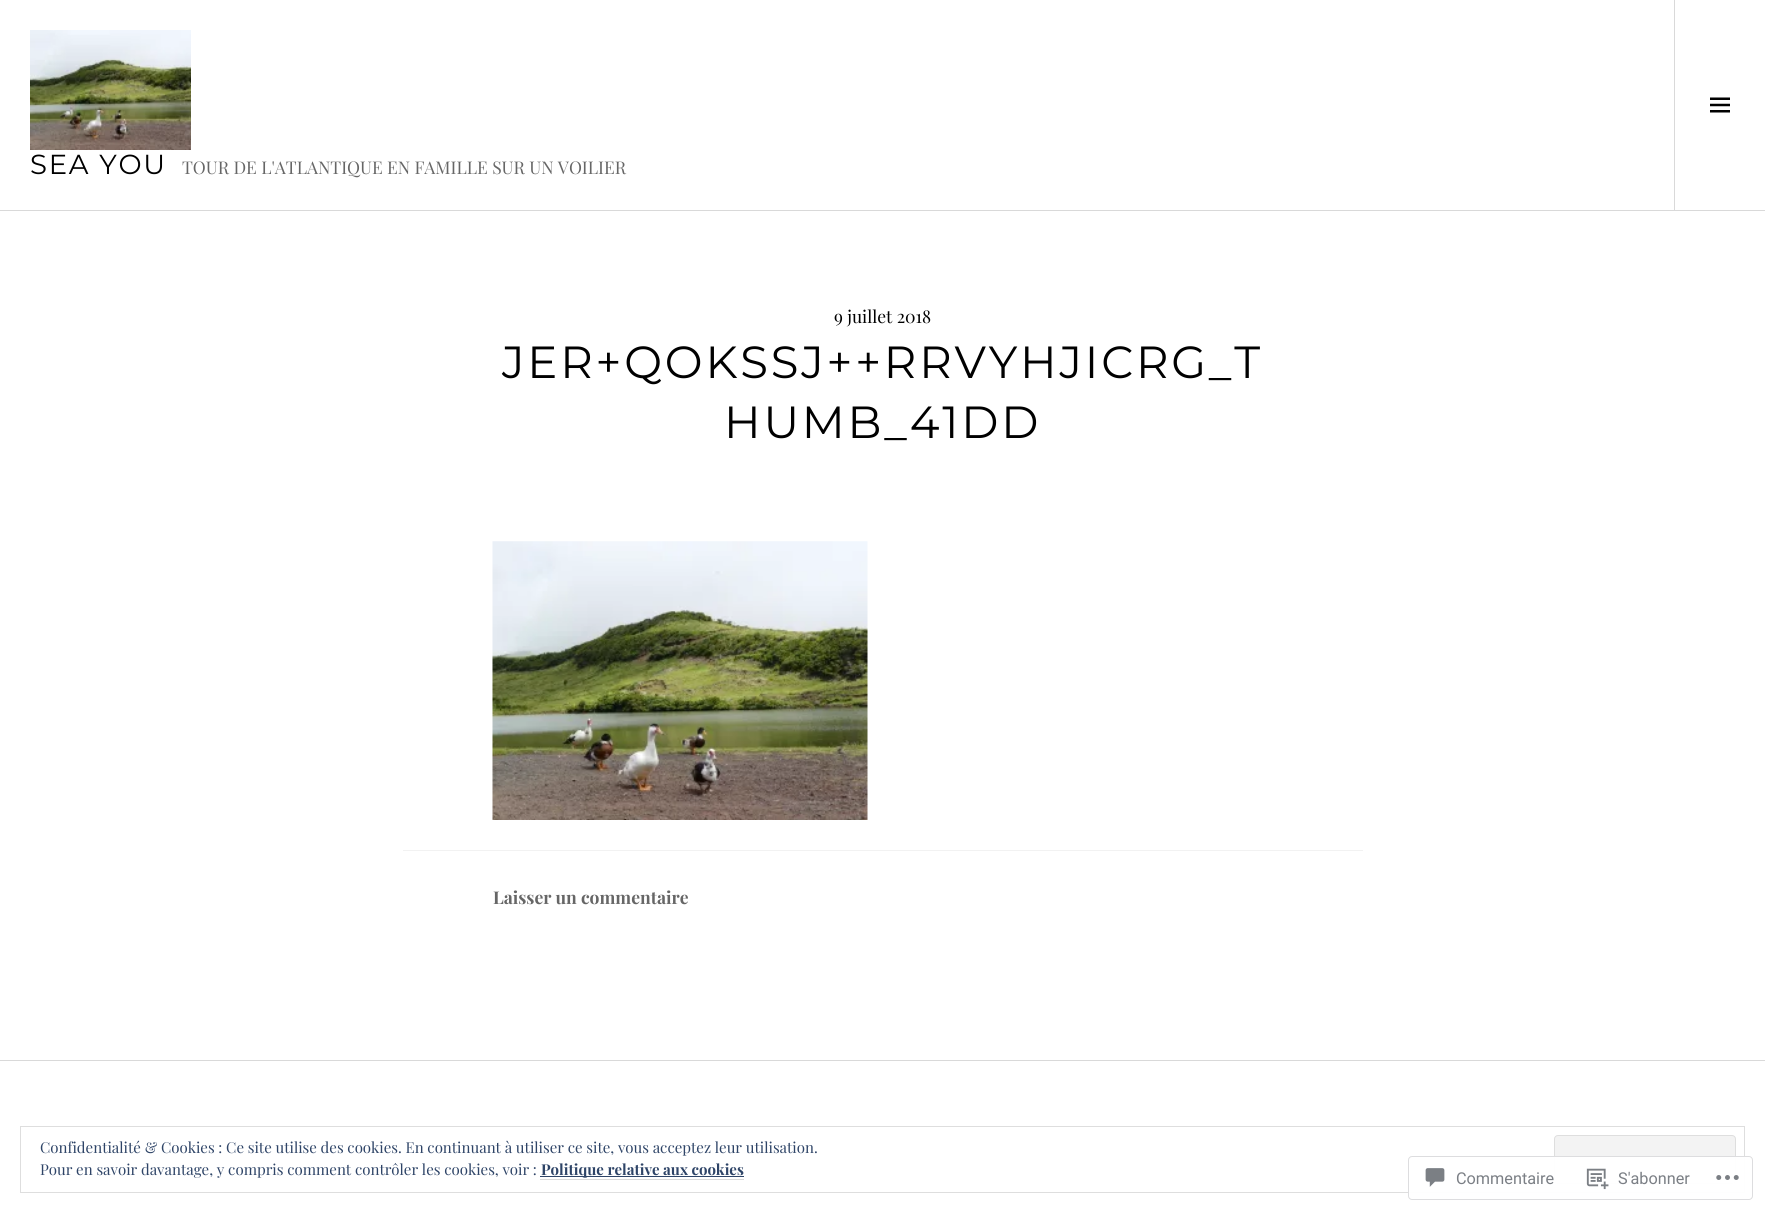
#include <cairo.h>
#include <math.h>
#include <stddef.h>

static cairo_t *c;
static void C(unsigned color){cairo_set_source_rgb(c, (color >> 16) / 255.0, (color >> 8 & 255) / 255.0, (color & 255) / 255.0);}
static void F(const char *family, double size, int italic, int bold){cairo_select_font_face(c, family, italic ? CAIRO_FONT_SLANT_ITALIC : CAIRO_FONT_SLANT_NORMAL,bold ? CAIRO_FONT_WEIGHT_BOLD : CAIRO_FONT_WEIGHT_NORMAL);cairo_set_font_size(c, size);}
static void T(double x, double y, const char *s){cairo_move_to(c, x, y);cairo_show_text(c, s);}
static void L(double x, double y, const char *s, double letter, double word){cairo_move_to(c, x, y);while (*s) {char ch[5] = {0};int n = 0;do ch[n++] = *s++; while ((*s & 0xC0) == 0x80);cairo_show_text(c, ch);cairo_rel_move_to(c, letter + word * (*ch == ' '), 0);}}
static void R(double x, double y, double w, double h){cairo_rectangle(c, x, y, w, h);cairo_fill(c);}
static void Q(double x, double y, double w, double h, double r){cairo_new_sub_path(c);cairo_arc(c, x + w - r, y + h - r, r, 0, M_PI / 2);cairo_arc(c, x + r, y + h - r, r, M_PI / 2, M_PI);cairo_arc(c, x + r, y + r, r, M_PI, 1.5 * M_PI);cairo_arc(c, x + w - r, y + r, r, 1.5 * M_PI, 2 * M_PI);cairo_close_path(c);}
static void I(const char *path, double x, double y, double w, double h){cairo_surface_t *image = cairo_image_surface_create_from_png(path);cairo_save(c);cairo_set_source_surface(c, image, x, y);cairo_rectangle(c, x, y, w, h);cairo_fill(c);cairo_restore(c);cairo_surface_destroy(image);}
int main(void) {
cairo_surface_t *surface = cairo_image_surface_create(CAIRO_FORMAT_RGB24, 1765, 1212);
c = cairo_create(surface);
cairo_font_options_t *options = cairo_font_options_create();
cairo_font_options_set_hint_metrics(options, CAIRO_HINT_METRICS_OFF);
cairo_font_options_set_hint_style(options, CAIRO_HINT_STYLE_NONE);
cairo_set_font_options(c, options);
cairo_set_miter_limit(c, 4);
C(0xffffff);
cairo_paint(c);
C(0xd9d9d9);
R(0,210,1765,1);
I("1.png",30,30,161,120);
F("Montserrat",27.5,0,0);
C(0x000000);
L(30,174,"SEA YOU",1.75,0);
F("Playfair Display",17.5,0,0);
C(0x666666);
T(182,174,"TOUR DE L'ATLANTIQUE EN FAMILLE SUR UN VOILIER");
C(0xd9d9d9);
R(1674,0,1,210);
I("2.png",1710,97,20,16);
C(0x000000);
T(834,323,"9 juillet 2018");
F("Montserrat",45,0,0);
L(502,378,"JER+QOKSSJ++RRVYHJICRG_T",2.8,0);
L(724,438,"HUMB_41DD",2.8,0);
I("3.png",492,541,376,279);
C(0xf2f2f2);
R(403,850,960,1);
F("Playfair Display",17.5,0,1);
C(0x666666);
T(493,904,"Laisser un commentaire");
C(0xd9d9d9);
R(0,1060,1765,1);
cairo_rectangle(c,20.5,1126.5,1724,66);
C(0xdedede);
cairo_set_line_width(c,1);
cairo_stroke(c);
F("Playfair Display",15,0,0);
C(0x2e4467);
T(40,1153,"Confidentialité & Cookies : Ce site utilise des cookies. En continuant à utiliser ce site, vous acceptez leur utilisation.");
C(0xf3f3f3);
Q(1554.5,1135.5,181,48,3.5);
cairo_fill_preserve(c);
C(0xdedede);
cairo_stroke(c);
C(0x2e4467);
T(40,1175,"Pour en savoir davantage, y compris comment contrôler les cookies, voir :");
R(540,1176,204,1);
F("Playfair Display",15,0,1);
T(541,1175,"Politique relative aux cookies");
C(0xd9d9d9);
R(540,1179,204,1);
cairo_set_source_rgba(c,1,1,1,0.98);
Q(1408,1156,345,44,4);
cairo_fill(c);
Q(1408.5,1156.5,344,43,3.5);
cairo_set_source_rgba(c,0.863,0.863,0.871,0.98);
cairo_stroke(c);
I("4.png",1425,1168,20,19);
F("Roboto",16.25,0,0);
C(0x7b7f85);
T(1456,1184,"Commentaire");
I("5.png",1586,1168,23,22);
T(1618,1184,"S'abonner");
I("6.png",1716,1175,23,5);
cairo_surface_write_to_png(surface, "o.png");
cairo_font_options_destroy(options);
cairo_destroy(c);
cairo_surface_destroy(surface);
return 0;
}
